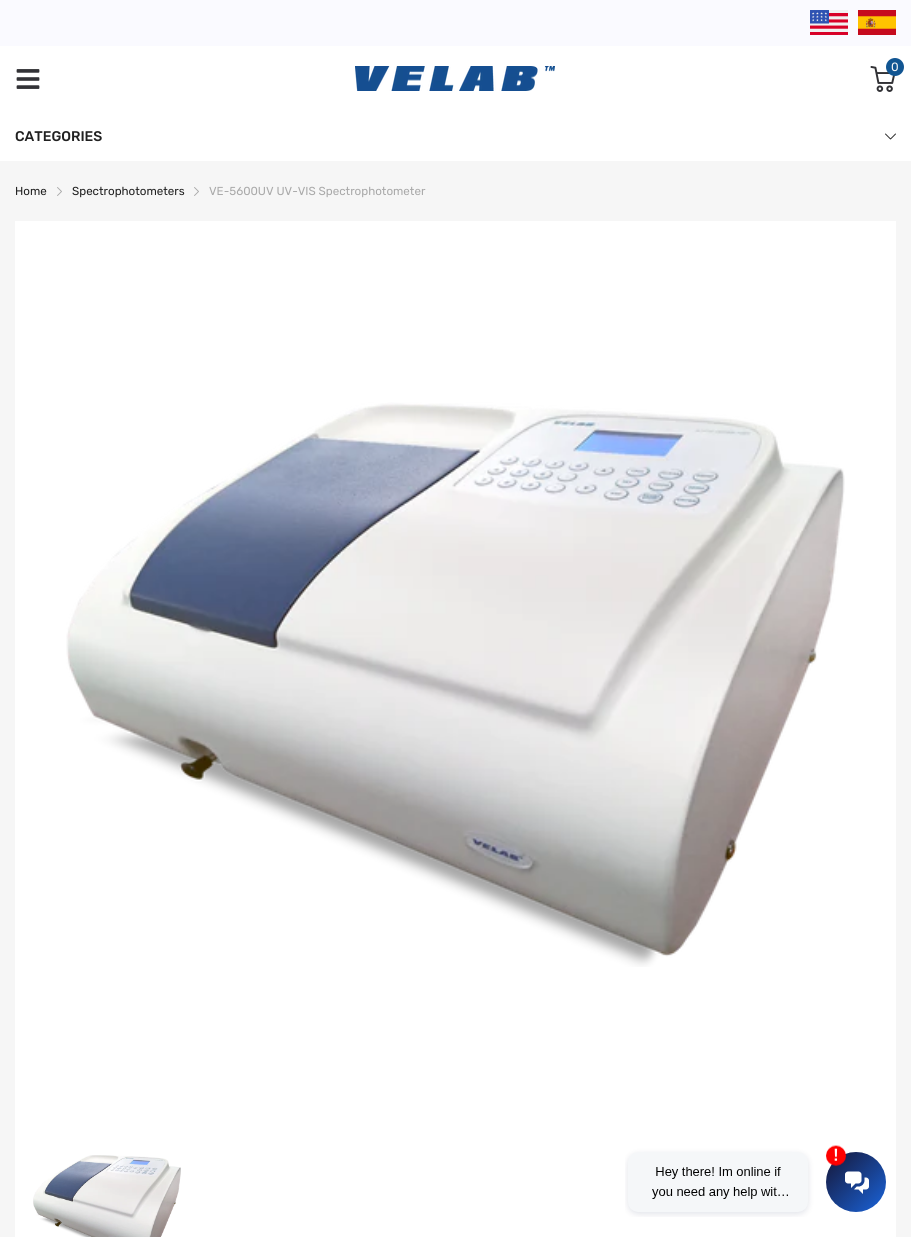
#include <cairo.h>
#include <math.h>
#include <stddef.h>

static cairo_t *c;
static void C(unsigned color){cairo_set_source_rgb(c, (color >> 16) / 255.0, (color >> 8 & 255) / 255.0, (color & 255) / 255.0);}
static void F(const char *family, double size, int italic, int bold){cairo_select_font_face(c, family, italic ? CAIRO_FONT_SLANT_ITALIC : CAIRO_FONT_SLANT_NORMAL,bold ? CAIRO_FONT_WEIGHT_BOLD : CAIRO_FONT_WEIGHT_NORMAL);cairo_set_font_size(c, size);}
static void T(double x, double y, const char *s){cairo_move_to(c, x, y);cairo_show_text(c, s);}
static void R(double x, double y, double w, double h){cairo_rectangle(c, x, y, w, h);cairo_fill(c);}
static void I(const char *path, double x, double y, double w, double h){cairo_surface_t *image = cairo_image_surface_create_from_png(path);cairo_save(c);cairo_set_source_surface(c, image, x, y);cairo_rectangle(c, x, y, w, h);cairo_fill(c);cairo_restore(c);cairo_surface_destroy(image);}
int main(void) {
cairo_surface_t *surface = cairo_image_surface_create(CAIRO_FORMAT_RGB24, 911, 1237);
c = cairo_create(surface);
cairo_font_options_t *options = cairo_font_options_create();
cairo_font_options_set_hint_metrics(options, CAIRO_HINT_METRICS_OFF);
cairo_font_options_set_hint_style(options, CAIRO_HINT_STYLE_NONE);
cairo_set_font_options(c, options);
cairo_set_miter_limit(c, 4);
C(0xf6f6f6);
cairo_paint(c);
C(0xfafaff);
R(0,0,911,46);
I("1.png",810,10,38,25);
I("2.png",858,10,38,25);
C(0xffffff);
R(0,46,911,115);
I("3.png",16,69,24,20);
I("4.png",355,66,200,25);
I("5.png",870,66,25,26);
C(0x115592);
cairo_arc(c,895,67,9,0,2 * M_PI);
cairo_fill(c);
F("Rubik",12,0,0);
C(0xf5f5f7);
T(891,71,"0");
F("Rubik Medium",14,0,0);
C(0x212121);
T(15,141,"CATEGORIES");
I("6.png",885,133,11,7);
F("Rubik",11.6,0,0);
T(15,195,"Home");
I("7.png",57,187,5,9);
T(72,195,"Spectrophotometers");
I("7.png",194,187,5,9);
C(0xa9a9a9);
T(209,195,"VE-5600UV UV-VIS Spectrophotometer");
C(0xffffff);
R(15,221,881,1016);
I("8.png",66,402,779,565);
I("9.png",33,1155,148,82);
I("10.png",625,1145,261,72);
cairo_surface_write_to_png(surface, "o.png");
cairo_font_options_destroy(options);
cairo_destroy(c);
cairo_surface_destroy(surface);
return 0;
}
